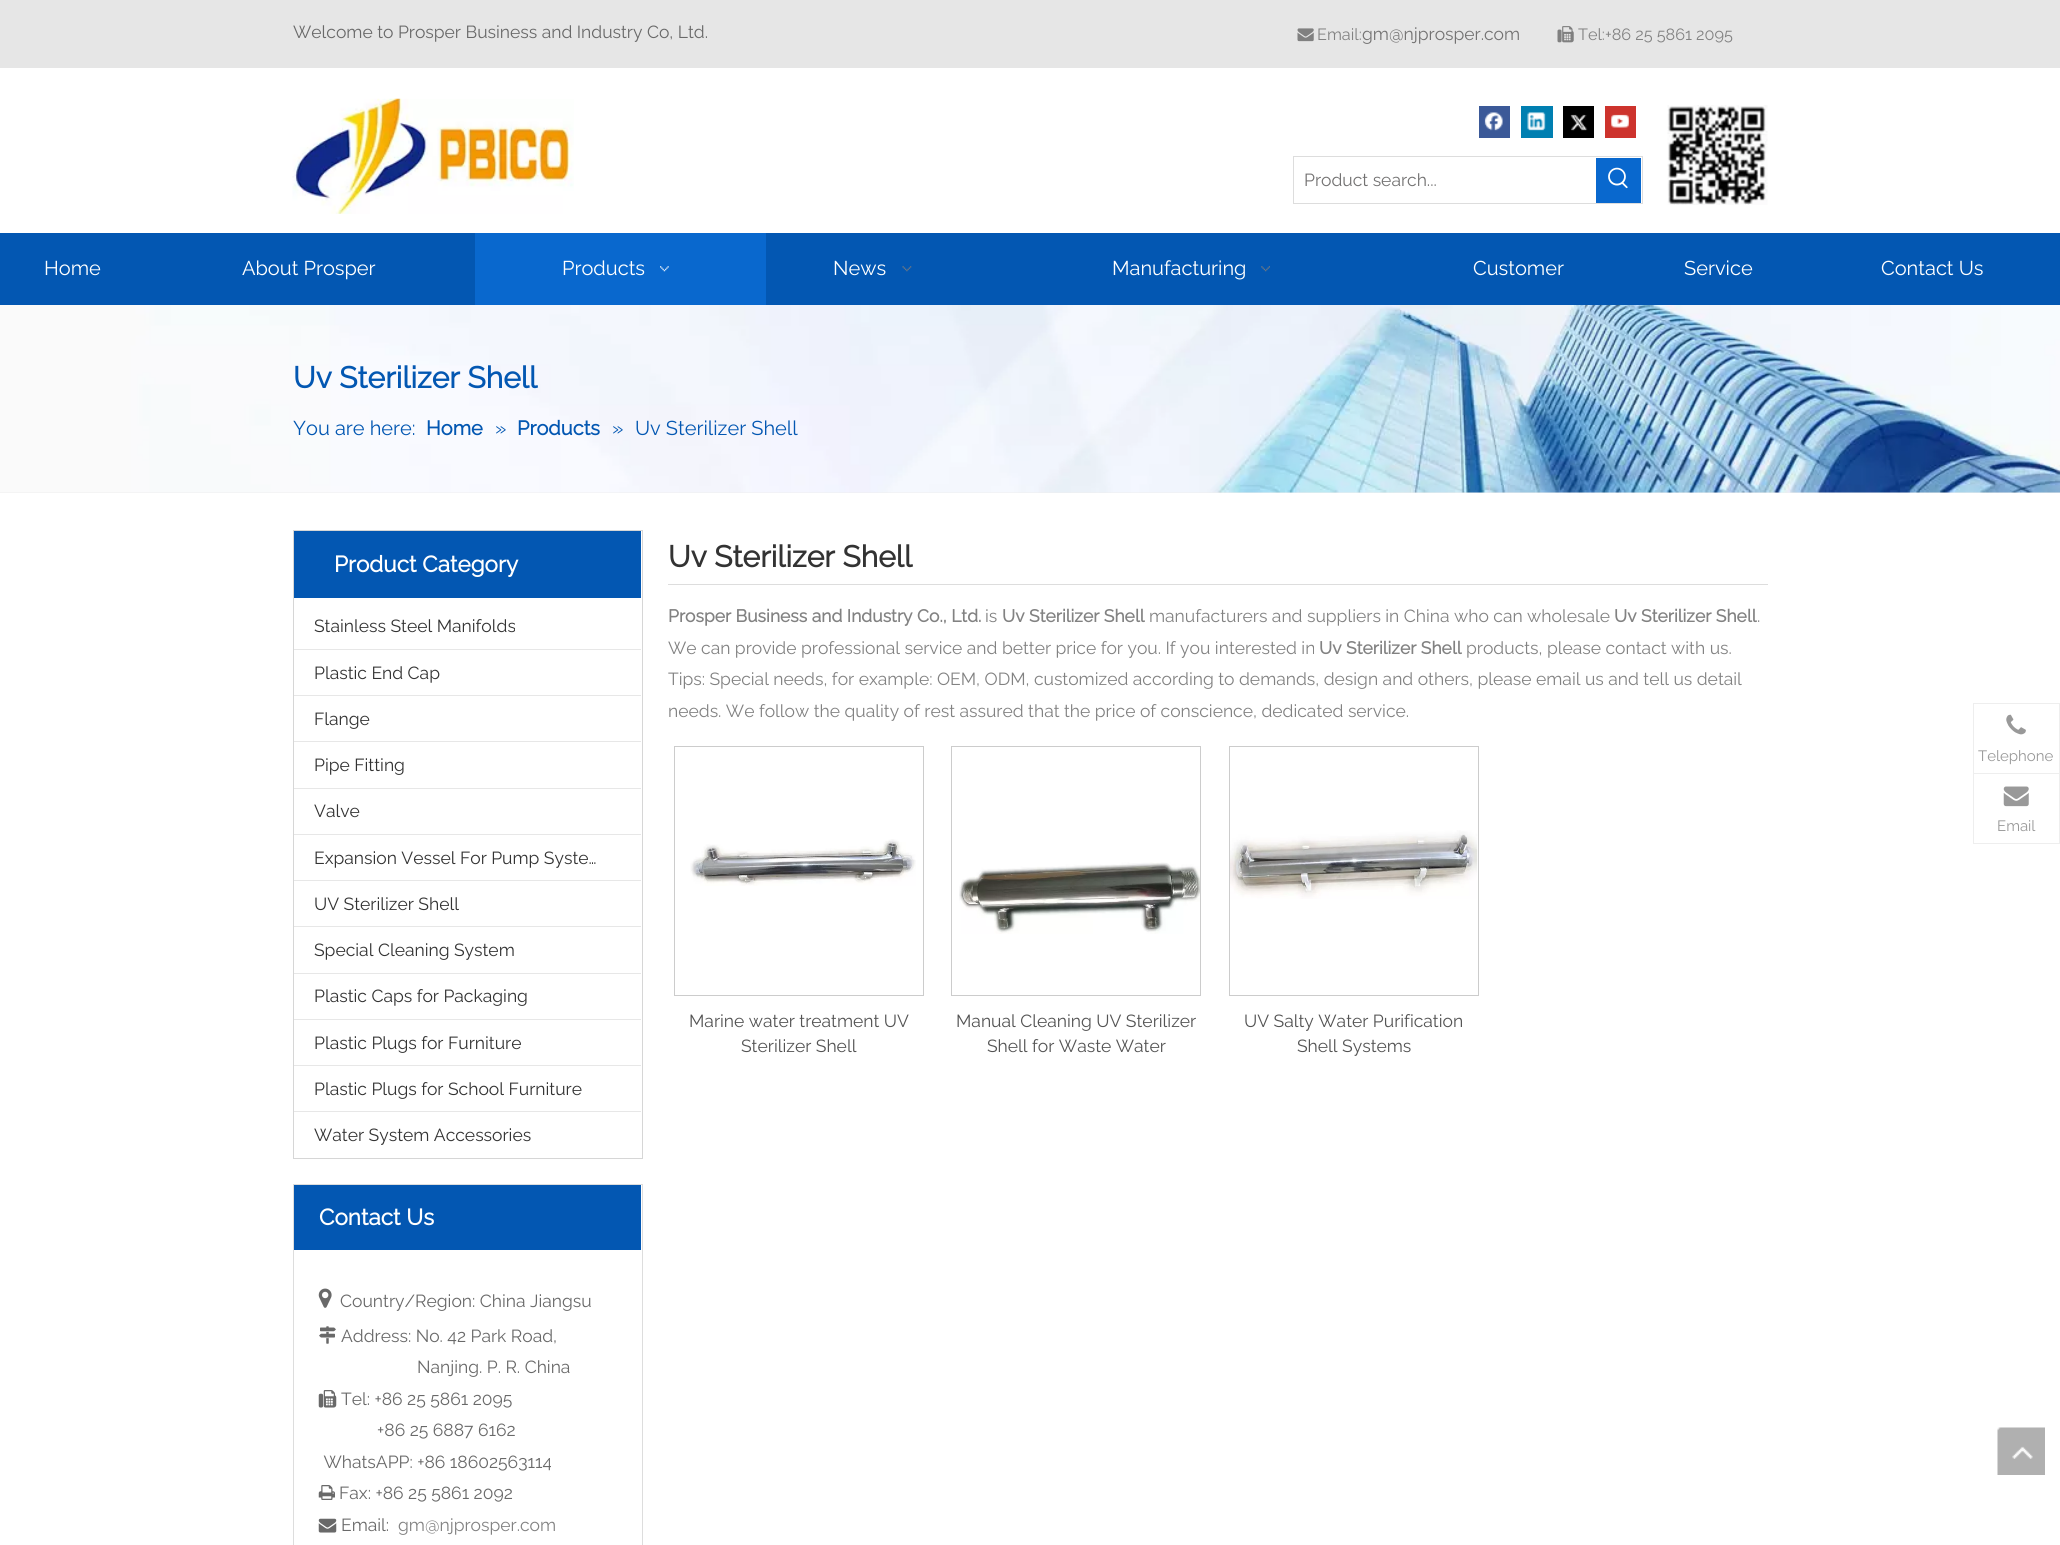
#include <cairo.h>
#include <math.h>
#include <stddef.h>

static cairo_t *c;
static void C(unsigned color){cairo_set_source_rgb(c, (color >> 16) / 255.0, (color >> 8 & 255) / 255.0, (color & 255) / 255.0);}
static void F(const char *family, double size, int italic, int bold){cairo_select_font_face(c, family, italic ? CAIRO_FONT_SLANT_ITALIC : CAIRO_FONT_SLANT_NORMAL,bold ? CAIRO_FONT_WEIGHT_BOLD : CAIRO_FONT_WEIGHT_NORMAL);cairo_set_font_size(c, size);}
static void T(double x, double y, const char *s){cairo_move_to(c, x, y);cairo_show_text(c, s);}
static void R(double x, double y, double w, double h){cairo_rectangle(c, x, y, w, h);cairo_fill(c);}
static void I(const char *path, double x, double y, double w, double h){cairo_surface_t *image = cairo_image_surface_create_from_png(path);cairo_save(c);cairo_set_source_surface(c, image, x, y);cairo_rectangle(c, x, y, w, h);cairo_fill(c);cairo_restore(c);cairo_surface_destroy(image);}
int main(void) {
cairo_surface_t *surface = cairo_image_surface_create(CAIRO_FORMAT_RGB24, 2060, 1545);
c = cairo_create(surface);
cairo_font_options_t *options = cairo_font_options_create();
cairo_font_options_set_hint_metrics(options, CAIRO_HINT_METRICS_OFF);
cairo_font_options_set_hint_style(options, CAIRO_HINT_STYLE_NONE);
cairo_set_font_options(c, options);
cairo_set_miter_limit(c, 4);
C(0xffffff);
cairo_paint(c);
C(0xe6e6e6);
R(0,0,2060,68);
F("Raleway Thin",17.5,0,0);
C(0x696969);
T(293,38,"Welcome to Prosper Business and Industry Co, Ltd.");
I("1.png",1297,28,17,14);
F("Raleway Thin",16.25,0,0);
C(0x828282);
T(1317,40,"Email:");
F("Raleway Thin",17.5,0,0);
C(0x737272);
T(1362,40,"gm@njprosper.com");
I("2.png",1557,26,17,17);
F("Raleway Thin",16.25,0,0);
C(0x828282);
T(1578,40,"Tel:+86 25 5861 2095");
I("3.png",292,98,282,116);
C(0x3b5998);
R(1479,106,31,32);
I("4.png",1484,112,19,19);
C(0x007fb1);
R(1521,106,32,32);
I("5.png",1527,112,19,19);
C(0x000000);
R(1563,106,31,32);
I("6.png",1570,114,18,17);
C(0xcd332d);
R(1605,106,31,32);
I("7.png",1611,114,18,14);
cairo_rectangle(c,1293.5,156.5,349,47);
C(0xdddddd);
cairo_set_line_width(c,1);
cairo_stroke(c);
F("Raleway Thin",17.5,0,0);
C(0x737272);
T(1304,186,"Product search...");
C(0x0968ce);
R(1596,158,45,45);
I("8.png",1608,167,20,22);
I("9.png",1667,105,101,100);
C(0x0357b2);
R(0,233,2060,72);
F("Raleway Thin",20,0,0);
C(0xffffff);
T(44,275,"Home");
T(242,275,"About Prosper");
C(0x0968ce);
R(475,233,291,72);
C(0xffffff);
T(562,275,"Products");
I("10.png",660,266,9,6);
T(833,275,"News");
I("11.png",902,266,10,6);
T(1112,275,"Manufacturing");
I("12.png",1261,266,9,6);
T(1473,275,"Customer");
T(1684,275,"Service");
T(1881,275,"Contact Us");
C(0xeeeeee);
R(0,492,2060,1);
I("13.png",0,305,2060,188);
F("Raleway",30,0,1);
C(0x0357b2);
T(293,388,"Uv Sterilizer Shell");
F("Raleway Thin",20,0,0);
T(293,435,"You are here:");
F("Raleway",20,0,1);
T(426,435,"Home");
F("Raleway Thin",20,0,0);
T(495,435,"»");
F("Raleway",20,0,1);
T(517,435,"Products");
F("Raleway Thin",20,0,0);
T(612,435,"»");
T(635,435,"Uv Sterilizer Shell");
cairo_rectangle(c,293.5,530.5,349,628);
C(0xd6d6d6);
cairo_stroke(c);
C(0x0357b2);
R(294,531,347,67);
F("Raleway",22.5,0,1);
C(0xffffff);
T(334,572,"Product Category");
F("Raleway Thin",17.5,0,0);
C(0x333333);
T(314,632,"Stainless Steel Manifolds");
C(0xe7e7e7);
R(294,649,347,1);
C(0x333333);
T(314,679,"Plastic End Cap");
C(0xe7e7e7);
R(294,695,347,1);
C(0x333333);
T(314,725,"Flange");
C(0xe7e7e7);
R(294,741,347,1);
C(0x333333);
T(314,771,"Pipe Fitting");
C(0xe7e7e7);
R(294,788,347,1);
C(0x333333);
T(314,817,"Valve");
C(0xe7e7e7);
R(294,834,347,1);
C(0x333333);
T(314,864,"Expansion Vessel For Pump Syste…");
C(0xe7e7e7);
R(294,880,347,1);
C(0x333333);
T(314,910,"UV Sterilizer Shell");
C(0xe7e7e7);
R(294,926,347,1);
C(0x333333);
T(314,956,"Special Cleaning System");
C(0xe7e7e7);
R(294,973,347,1);
C(0x333333);
T(314,1002,"Plastic Caps for Packaging");
C(0xe7e7e7);
R(294,1019,347,1);
C(0x333333);
T(314,1049,"Plastic Plugs for Furniture");
C(0xe7e7e7);
R(294,1065,347,1);
C(0x333333);
T(314,1095,"Plastic Plugs for School Furniture");
C(0xe7e7e7);
R(294,1111,347,1);
C(0x333333);
T(314,1141,"Water System Accessories");
cairo_rectangle(c,293.5,1184.5,349,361);
C(0xdddddd);
cairo_stroke(c);
C(0x0357b2);
R(294,1185,347,65);
F("Raleway",22.5,0,1);
C(0xffffff);
T(319,1225,"Contact Us");
I("14.png",318,1288,14,20);
F("Raleway Thin",17.5,0,0);
C(0x696969);
T(340,1307,"Country/Region: China Jiangsu");
I("15.png",319,1326,17,18);
T(341,1342,"Address: No. 42 Park Road,");
T(417,1373,"Nanjing. P. R. China");
I("16.png",318,1390,19,18);
T(341,1405,"Tel: +86 25 5861 2095");
T(377,1436,"+86 25 6887 6162");
T(319,1468," WhatsAPP: +86 18602563114");
I("17.png",318,1485,17,15);
T(339,1499,"Fax: +86 25 5861 2092");
I("18.png",318,1518,19,15);
T(341,1531,"Email:");
C(0x828282);
T(398,1531,"gm@njprosper.com");
C(0xdddddd);
R(668,584,1100,1);
F("Raleway",30,0,1);
C(0x333333);
T(668,567,"Uv Sterilizer Shell");
F("Raleway",17.5,0,1);
C(0x828282);
T(668,622,"Prosper Business and Industry Co., Ltd.");
F("Raleway Thin",17.5,0,0);
T(985,622,"is");
F("Raleway",17.5,0,1);
T(1002,622,"Uv Sterilizer Shell");
F("Raleway Thin",17.5,0,0);
T(1149,622,"manufacturers and suppliers in China who can wholesale");
F("Raleway",17.5,0,1);
T(1614,622,"Uv Sterilizer Shell");
F("Raleway Thin",17.5,0,0);
T(1757,622,".");
T(668,654,"We can provide professional service and better price for you. If you interested in");
F("Raleway",17.5,0,1);
T(1319,654,"Uv Sterilizer Shell");
F("Raleway Thin",17.5,0,0);
T(1466,654,"products, please contact with us.");
T(668,685,"Tips: Special needs, for example: OEM, ODM, customized according to demands, design and others, please email us and tell us detail");
T(668,717,"needs. We follow the quality of rest assured that the price of conscience, dedicated service.");
cairo_rectangle(c,674.5,746.5,249,249);
C(0xcccccc);
cairo_stroke(c);
I("19.png",690,839,226,47);
C(0x545454);
T(689,1027,"Marine water treatment UV");
T(741,1052,"Sterilizer Shell");
cairo_rectangle(c,951.5,746.5,249,249);
C(0xcccccc);
cairo_stroke(c);
I("20.png",959,862,241,72);
C(0x545454);
T(956,1027,"Manual Cleaning UV Sterilizer");
T(987,1052,"Shell for Waste Water");
cairo_rectangle(c,1229.5,746.5,249,249);
C(0xcccccc);
cairo_stroke(c);
I("21.png",1230,830,248,69);
C(0x545454);
T(1244,1027,"UV Salty Water Purification");
T(1297,1052,"Shell Systems");
C(0xeeeeee);
R(1973,703,87,1);
R(2059,703,1,70);
R(1973,703,1,70);
I("22.png",2006,714,20,21);
F("Raleway Thin",15,0,0);
C(0x999999);
T(1978,761,"Telephone");
cairo_rectangle(c,1973.5,773.5,86,70);
C(0xeeeeee);
cairo_stroke(c);
I("23.png",2003,786,26,21);
C(0x999999);
T(1997,831,"Email");
I("24.png",1997,1427,48,48);
cairo_surface_write_to_png(surface, "o.png");
cairo_font_options_destroy(options);
cairo_destroy(c);
cairo_surface_destroy(surface);
return 0;
}
